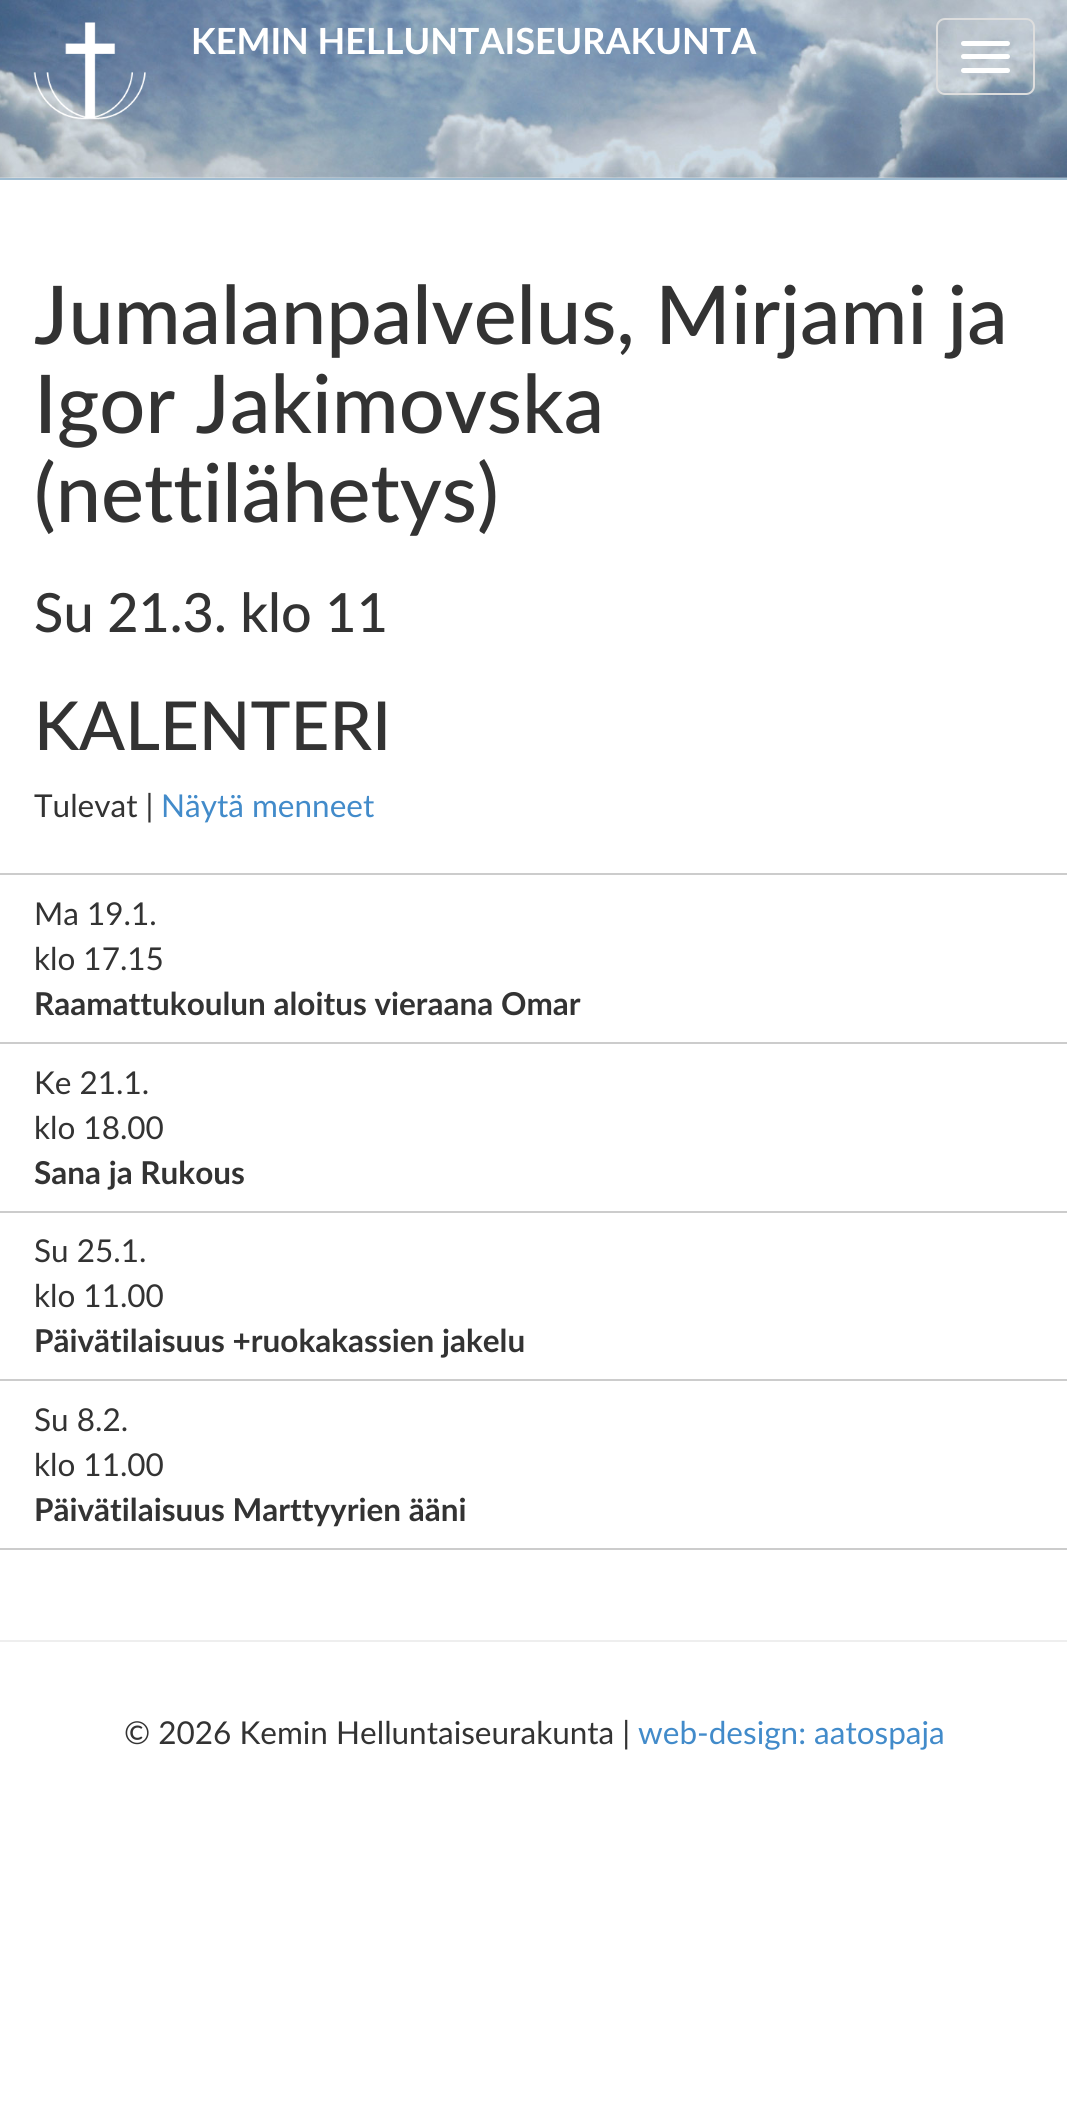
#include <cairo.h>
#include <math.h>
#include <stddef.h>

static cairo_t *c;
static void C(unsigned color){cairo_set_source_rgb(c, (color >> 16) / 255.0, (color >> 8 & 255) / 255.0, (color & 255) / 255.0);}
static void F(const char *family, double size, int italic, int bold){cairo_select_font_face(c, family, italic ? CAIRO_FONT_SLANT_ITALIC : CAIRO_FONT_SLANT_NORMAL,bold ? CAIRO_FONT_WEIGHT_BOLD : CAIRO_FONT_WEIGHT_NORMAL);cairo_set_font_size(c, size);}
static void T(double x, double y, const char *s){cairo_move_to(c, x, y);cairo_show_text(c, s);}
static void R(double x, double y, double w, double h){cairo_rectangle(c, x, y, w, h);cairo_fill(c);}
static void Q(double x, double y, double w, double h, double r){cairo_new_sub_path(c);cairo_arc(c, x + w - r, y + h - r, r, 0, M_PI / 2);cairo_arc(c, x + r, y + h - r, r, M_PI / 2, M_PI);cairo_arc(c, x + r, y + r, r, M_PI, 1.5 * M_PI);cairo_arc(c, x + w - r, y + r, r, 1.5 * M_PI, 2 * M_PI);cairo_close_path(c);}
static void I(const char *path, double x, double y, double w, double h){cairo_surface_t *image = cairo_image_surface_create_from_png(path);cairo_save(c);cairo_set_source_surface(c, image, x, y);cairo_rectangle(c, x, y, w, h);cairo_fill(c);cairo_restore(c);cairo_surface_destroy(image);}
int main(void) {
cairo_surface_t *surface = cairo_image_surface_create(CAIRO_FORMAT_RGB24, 1067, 2127);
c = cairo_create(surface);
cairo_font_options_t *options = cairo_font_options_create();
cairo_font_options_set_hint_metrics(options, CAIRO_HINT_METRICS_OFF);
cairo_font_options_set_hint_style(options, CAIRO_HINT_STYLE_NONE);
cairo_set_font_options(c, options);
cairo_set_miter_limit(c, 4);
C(0xffffff);
cairo_paint(c);
I("1.png",0,0,1067,178);
C(0x9ebbd0);
R(0,178,1067,2);
I("2.png",33,22,113,98);
F("Lato",36,0,1);
C(0xffffff);
T(191,54,"KEMIN HELLUNTAISEURAKUNTA");
Q(937,19,97,75,8);
C(0xdddddd);
cairo_stroke(c);
C(0xffffff);
Q(961,41,49,5,2.5);
cairo_fill(c);
Q(961,54,49,5,2.5);
cairo_fill(c);
Q(961,68,49,5,2.5);
cairo_fill(c);
F("Lato Medium",81,0,0);
C(0x333333);
T(34,344,"Jumalanpalvelus, Mirjami ja");
T(34,433,"Igor Jakimovska");
T(34,522,"(nettilähetys)");
F("Lato Medium",54,0,0);
T(34,632,"Su 21.3. klo 11");
C(0xcccccc);
R(0,1548,1067,2);
F("Lato Medium",67.5,0,0);
C(0x333333);
T(34,750,"KALENTERI");
F("Lato",31.5,0,0);
T(34,817,"Tulevat |");
C(0x428bca);
T(161,817,"Näytä menneet");
C(0xcccccc);
R(0,873,1067,2);
C(0x333333);
T(34,925,"Ma 19.1.");
T(34,970,"klo 17.15");
F("Lato",31.5,0,1);
T(34,1015,"Raamattukoulun aloitus vieraana Omar");
C(0xcccccc);
R(0,1042,1067,2);
F("Lato",31.5,0,0);
C(0x333333);
T(34,1094,"Ke 21.1.");
T(34,1139,"klo 18.00");
F("Lato",31.5,0,1);
T(34,1184,"Sana ja Rukous");
C(0xcccccc);
R(0,1211,1067,2);
F("Lato",31.5,0,0);
C(0x333333);
T(34,1262,"Su 25.1.");
T(34,1307,"klo 11.00");
F("Lato",31.5,0,1);
T(34,1352,"Päivätilaisuus +ruokakassien jakelu");
C(0xcccccc);
R(0,1379,1067,2);
F("Lato",31.5,0,0);
C(0x333333);
T(34,1431,"Su 8.2.");
T(34,1476,"klo 11.00");
F("Lato",31.5,0,1);
T(34,1521,"Päivätilaisuus Marttyyrien ääni");
C(0xeeeeee);
R(0,1640,1067,2);
F("Lato",31.5,0,0);
C(0x333333);
T(124,1744,"© 2026 Kemin Helluntaiseurakunta |");
C(0x428bca);
T(638,1744,"web-design: aatospaja");
cairo_surface_write_to_png(surface, "o.png");
cairo_font_options_destroy(options);
cairo_destroy(c);
cairo_surface_destroy(surface);
return 0;
}
